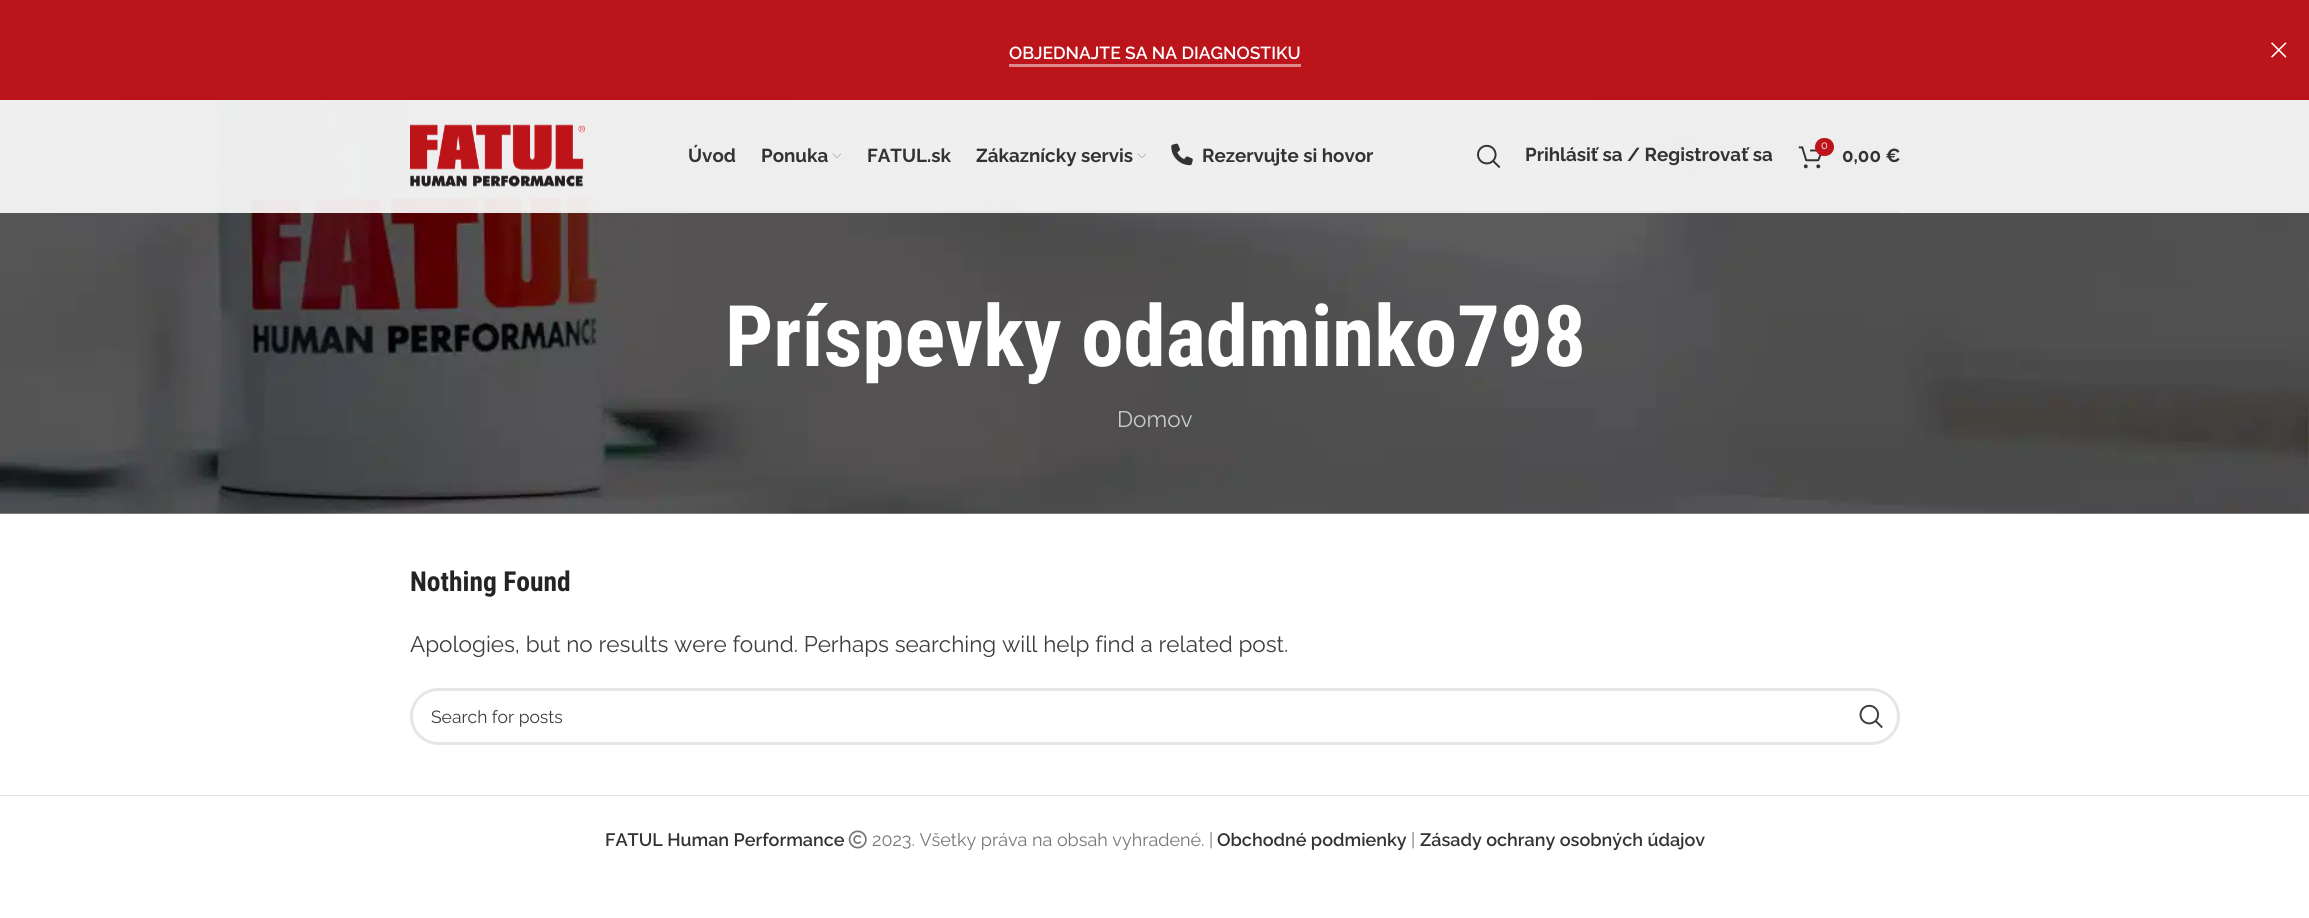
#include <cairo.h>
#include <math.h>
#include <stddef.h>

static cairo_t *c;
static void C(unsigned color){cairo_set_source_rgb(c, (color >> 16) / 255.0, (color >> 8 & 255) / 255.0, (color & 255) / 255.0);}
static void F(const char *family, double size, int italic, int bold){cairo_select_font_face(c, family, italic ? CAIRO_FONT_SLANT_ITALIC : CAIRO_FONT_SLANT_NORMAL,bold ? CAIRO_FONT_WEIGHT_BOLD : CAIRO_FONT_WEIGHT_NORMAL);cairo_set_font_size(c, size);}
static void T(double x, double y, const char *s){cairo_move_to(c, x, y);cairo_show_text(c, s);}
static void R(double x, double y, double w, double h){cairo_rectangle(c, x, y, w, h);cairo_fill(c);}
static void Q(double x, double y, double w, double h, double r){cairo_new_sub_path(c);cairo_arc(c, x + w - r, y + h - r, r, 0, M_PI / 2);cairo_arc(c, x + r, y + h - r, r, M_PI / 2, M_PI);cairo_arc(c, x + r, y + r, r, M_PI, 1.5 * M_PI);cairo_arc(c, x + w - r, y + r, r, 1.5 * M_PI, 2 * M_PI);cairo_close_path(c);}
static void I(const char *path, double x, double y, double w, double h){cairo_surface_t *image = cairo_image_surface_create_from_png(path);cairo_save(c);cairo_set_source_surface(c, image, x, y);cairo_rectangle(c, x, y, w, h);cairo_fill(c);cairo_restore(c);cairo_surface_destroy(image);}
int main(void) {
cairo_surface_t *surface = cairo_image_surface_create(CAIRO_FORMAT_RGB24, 2309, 918);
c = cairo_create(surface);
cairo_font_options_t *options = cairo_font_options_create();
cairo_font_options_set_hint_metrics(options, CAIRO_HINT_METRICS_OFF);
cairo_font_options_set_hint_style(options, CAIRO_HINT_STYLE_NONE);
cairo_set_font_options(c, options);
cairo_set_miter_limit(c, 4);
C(0xffffff);
cairo_paint(c);
C(0xbc141b);
R(0,0,2309,100);
C(0xde8a8d);
R(1009,64,292,3);
F("Raleway SemiBold",17.5,0,0);
C(0xffffff);
T(1009,59,"OBJEDNAJTE SA NA DIAGNOSTIKU");
I("1.png",2271,42,16,16);
I("8.png",0,100,2309,414);
cairo_set_source_rgba(c,1,1,1,0.9);
R(0,100,2309,113);
C(0xe3e3e3);
R(410,211,1490,1);
I("2.png",410,124,175,63);
F("Raleway",18.75,0,1);
C(0x333333);
T(688,162,"Úvod");
T(761,162,"Ponuka");
I("3.png",832,153,9,6);
T(867,162,"FATUL.sk");
T(976,162,"Zákaznícky servis");
I("4.png",1137,153,9,6);
I("5.png",1171,143,22,23);
T(1202,162,"Rezervujte si hovor");
I("6.png",1477,144,24,24);
T(1525,161,"Prihlásiť sa / Registrovať sa");
I("7.png",1798,146,24,23);
C(0xbc141a);
Q(1815,138,19,18,9);
cairo_fill(c);
F("Raleway",11,0,0);
C(0xffffff);
T(1821,149,"0");
F("Raleway",18.75,0,1);
C(0x333333);
T(1842,162,"0,00 €");
F("Roboto Condensed",85,0,1);
C(0xffffff);
T(725,366,"Príspevky odadminko798");
F("Raleway",22.5,0,0);
C(0xcacaca);
T(1117,427,"Domov");
F("Roboto Condensed",27.5,0,1);
C(0x242424);
T(410,591,"Nothing Found");
F("Raleway",22.5,0,0);
C(0x3d3d3d);
T(410,652,"Apologies, but no results were found. Perhaps searching will help find a related post.");
Q(411.5,689.5,1487,54,27);
C(0xe6e6e6);
cairo_set_line_width(c,3);
cairo_stroke(c);
F("Raleway",17.5,0,0);
C(0x3d3d3d);
T(431,723,"Search for posts");
I("9.png",1859,704,24,25);
C(0xe4e4e4);
R(0,795,2309,1);
F("Raleway SemiBold",18,0,0);
C(0x333333);
T(605,846,"FATUL Human Performance");
I("10.png",848,830,19,19);
F("Raleway",18,0,0);
C(0x767676);
T(872,846,"2023. Všetky práva na obsah vyhradené. |");
F("Raleway SemiBold",18,0,0);
C(0x333333);
T(1217,846,"Obchodné podmienky");
F("Raleway",18,0,0);
C(0x767676);
T(1411,846,"|");
F("Raleway SemiBold",18,0,0);
C(0x333333);
T(1420,846,"Zásady ochrany osobných údajov");
cairo_surface_write_to_png(surface, "o.png");
cairo_font_options_destroy(options);
cairo_destroy(c);
cairo_surface_destroy(surface);
return 0;
}
